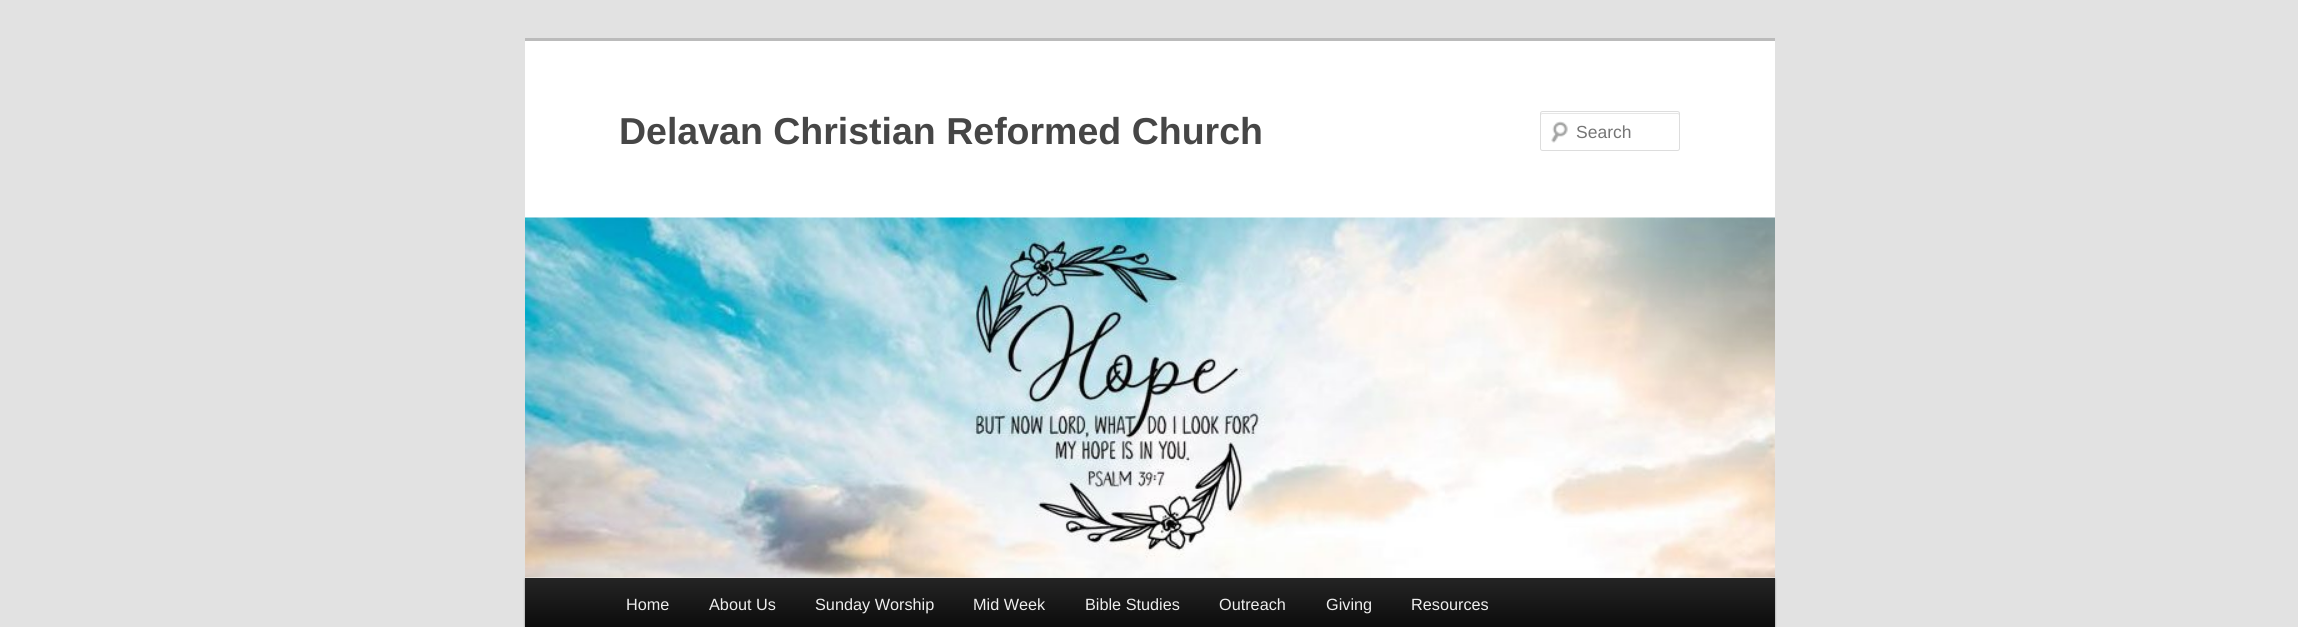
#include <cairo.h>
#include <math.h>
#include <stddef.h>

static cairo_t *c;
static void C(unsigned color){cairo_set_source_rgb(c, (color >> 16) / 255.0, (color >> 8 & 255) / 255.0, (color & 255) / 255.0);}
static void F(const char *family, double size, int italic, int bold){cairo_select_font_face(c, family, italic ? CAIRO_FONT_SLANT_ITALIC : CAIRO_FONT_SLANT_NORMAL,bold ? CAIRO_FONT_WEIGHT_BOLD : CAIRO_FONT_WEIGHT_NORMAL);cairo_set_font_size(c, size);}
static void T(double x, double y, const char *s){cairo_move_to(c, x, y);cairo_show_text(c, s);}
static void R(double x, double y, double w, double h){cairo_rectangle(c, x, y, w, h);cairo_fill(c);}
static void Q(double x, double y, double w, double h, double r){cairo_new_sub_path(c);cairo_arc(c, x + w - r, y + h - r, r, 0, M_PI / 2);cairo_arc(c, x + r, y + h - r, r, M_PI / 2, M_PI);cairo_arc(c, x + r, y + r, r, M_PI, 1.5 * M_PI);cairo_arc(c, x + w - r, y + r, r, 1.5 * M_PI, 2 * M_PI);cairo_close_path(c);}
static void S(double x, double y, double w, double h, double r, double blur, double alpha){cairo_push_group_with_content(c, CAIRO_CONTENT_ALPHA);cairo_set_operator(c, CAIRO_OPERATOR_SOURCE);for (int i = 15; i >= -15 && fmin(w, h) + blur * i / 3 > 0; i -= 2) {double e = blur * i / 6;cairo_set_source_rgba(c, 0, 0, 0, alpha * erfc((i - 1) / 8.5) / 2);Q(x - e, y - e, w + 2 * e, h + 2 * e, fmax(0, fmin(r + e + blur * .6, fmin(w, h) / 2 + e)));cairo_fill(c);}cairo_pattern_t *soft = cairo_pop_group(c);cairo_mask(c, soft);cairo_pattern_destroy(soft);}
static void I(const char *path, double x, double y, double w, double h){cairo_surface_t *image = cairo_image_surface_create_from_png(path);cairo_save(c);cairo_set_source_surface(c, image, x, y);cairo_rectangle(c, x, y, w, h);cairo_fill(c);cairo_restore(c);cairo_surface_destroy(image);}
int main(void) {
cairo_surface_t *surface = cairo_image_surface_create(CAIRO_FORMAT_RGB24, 2298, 627);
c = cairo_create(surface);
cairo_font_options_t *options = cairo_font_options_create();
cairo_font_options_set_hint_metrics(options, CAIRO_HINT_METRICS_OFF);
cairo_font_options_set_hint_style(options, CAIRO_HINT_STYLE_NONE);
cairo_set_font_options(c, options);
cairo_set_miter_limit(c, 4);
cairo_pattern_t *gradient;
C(0xe2e2e2);
cairo_paint(c);
C(0xffffff);
R(525,41,1250,537);
C(0xbbbbbb);
R(525,38,1250,3);
F("Liberation Sans",37.5,0,1);
C(0x464646);
T(619,144,"Delavan Christian Reformed Church");
I("1.png",1551,121,17,22);
C(0xe6e6e6);
cairo_new_path(c);
cairo_move_to(c,1542,114);
cairo_line_to(c,1678,114);
cairo_line_to(c,1679,115);
cairo_curve_to(c,1679,114,1679,113,1678,113);
cairo_line_to(c,1542,113);
cairo_curve_to(c,1541,113,1541,114,1541,115);
cairo_close_path(c);
cairo_fill(c);
Q(1540.5,111.5,139,39,2);
C(0xdddddd);
cairo_set_line_width(c,1);
cairo_stroke(c);
F("Liberation Sans",17.5,0,0);
C(0x757575);
T(1576,138,"Search");
C(0x000000);
S(525,579,1250,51,0,1,.4);
I("2.png",525,217,1250,361);
gradient = cairo_pattern_create_linear(1150,577,1150,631);
cairo_pattern_add_color_stop_rgba(gradient,0,0.145,0.145,0.145,1);
cairo_pattern_add_color_stop_rgba(gradient,1,0.039,0.039,0.039,1);
cairo_set_source(c,gradient);
cairo_pattern_destroy(gradient);
R(525,578,1250,49);
F("Liberation Sans",16.25,0,0);
C(0xeeeeee);
T(626,610,"Home");
T(709,610,"About Us");
T(815,610,"Sunday Worship");
T(973,610,"Mid Week");
T(1085,610,"Bible Studies");
T(1219,610,"Outreach");
T(1326,610,"Giving");
T(1411,610,"Resources");
cairo_surface_write_to_png(surface, "o.png");
cairo_font_options_destroy(options);
cairo_destroy(c);
cairo_surface_destroy(surface);
return 0;
}
